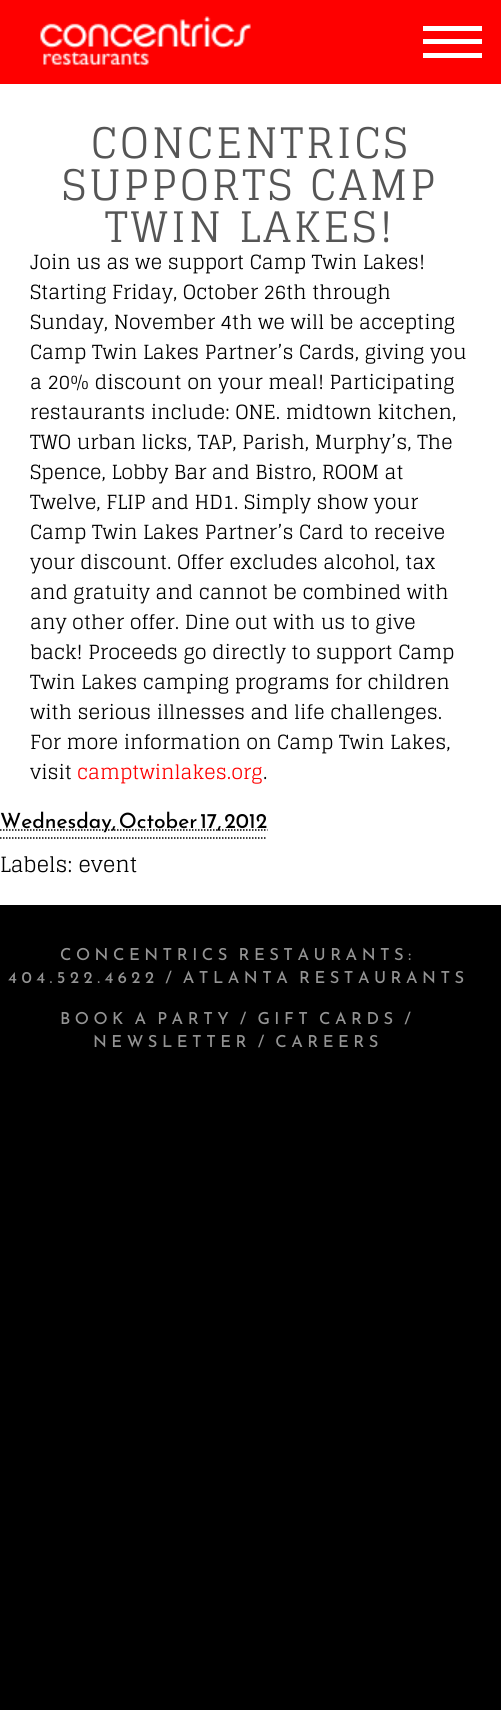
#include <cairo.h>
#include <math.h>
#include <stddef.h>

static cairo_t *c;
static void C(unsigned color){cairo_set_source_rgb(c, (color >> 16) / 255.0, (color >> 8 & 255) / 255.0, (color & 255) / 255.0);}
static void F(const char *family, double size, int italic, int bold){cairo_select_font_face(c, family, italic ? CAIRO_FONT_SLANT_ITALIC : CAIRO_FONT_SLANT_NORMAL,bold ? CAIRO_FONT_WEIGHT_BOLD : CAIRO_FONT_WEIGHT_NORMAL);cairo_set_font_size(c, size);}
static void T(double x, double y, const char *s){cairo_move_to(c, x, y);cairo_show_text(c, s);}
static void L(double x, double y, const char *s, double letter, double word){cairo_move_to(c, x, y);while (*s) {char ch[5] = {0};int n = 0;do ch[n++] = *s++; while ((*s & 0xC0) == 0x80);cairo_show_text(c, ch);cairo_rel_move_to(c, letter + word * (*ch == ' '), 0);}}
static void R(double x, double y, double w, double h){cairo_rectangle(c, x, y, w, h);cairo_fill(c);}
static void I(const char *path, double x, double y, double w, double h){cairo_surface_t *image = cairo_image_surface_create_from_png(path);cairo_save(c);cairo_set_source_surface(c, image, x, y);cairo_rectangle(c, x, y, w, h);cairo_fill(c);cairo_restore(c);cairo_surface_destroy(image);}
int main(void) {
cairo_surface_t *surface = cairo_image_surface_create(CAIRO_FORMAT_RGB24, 501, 1710);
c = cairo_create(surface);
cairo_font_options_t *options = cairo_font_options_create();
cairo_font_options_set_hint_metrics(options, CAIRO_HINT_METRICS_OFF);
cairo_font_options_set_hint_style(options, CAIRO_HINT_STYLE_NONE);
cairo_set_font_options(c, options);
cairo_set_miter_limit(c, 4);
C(0x000000);
cairo_paint(c);
C(0xfe0000);
R(0,0,501,84);
I("1.png",40,16,211,50);
C(0xffffff);
R(423,26,59,5);
R(423,39,59,5);
R(423,53,59,5);
R(0,84,501,821);
F("Glegoo",42,0,0);
C(0x555555);
L(91,158,"CONCENTRICS",3,0);
L(62,200,"SUPPORTS CAMP",3,0);
L(105,242,"TWIN LAKES!",3,0);
F("Glegoo",19.5,0,0);
C(0x000000);
T(30,269,"Join us as we support Camp Twin Lakes!");
T(30,299,"Starting Friday, October 26th through");
T(30,329,"Sunday, November 4th we will be accepting");
T(30,359,"Camp Twin Lakes Partner’s Cards, giving you");
T(30,389,"a 20% discount on your meal! Participating");
T(30,419,"restaurants include: ONE. midtown kitchen,");
T(30,449,"TWO urban licks, TAP, Parish, Murphy’s, The");
T(30,479,"Spence, Lobby Bar and Bistro, ROOM at");
T(30,509,"Twelve, FLIP and HD1. Simply show your");
T(30,539,"Camp Twin Lakes Partner’s Card to receive");
T(30,569,"your discount. Offer excludes alcohol, tax");
T(30,599,"and gratuity and cannot be combined with");
T(30,629,"any other offer. Dine out with us to give");
T(30,659,"back! Proceeds go directly to support Camp");
T(30,689,"Twin Lakes camping programs for children");
T(30,719,"with serious illnesses and life challenges.");
T(30,749,"For more information on Camp Twin Lakes,");
T(30,779,"visit");
C(0xfe0000);
T(77,779,"camptwinlakes.org");
C(0x000000);
T(263,779,".");
cairo_new_path(c);
cairo_move_to(c,0,830);
cairo_line_to(c,267.5,830);
cairo_set_line_width(c,1.5);
cairo_set_dash(c,(double[]){1.5,1.5},2,0);
cairo_stroke(c);
F("Reem Kufi",21,0,0);
T(0,828,"Wednesday, October 17, 2012");
cairo_new_path(c);
cairo_move_to(c,0,838);
cairo_line_to(c,267,838);
cairo_stroke(c);
F("Glegoo",21,0,0);
T(0,872,"Labels: event");
F("Reem Kufi",16.5,0,0);
C(0x949494);
L(60,960,"CONCENTRICS RESTAURANTS:",4.5,0);
L(8,983,"404.522.4622 / ATLANTA RESTAURANTS",4.5,0);
L(60,1024,"BOOK A PARTY / GIFT CARDS /",4.5,0);
L(93,1047,"NEWSLETTER / CAREERS",4.5,0);
cairo_surface_write_to_png(surface, "o.png");
cairo_font_options_destroy(options);
cairo_destroy(c);
cairo_surface_destroy(surface);
return 0;
}
